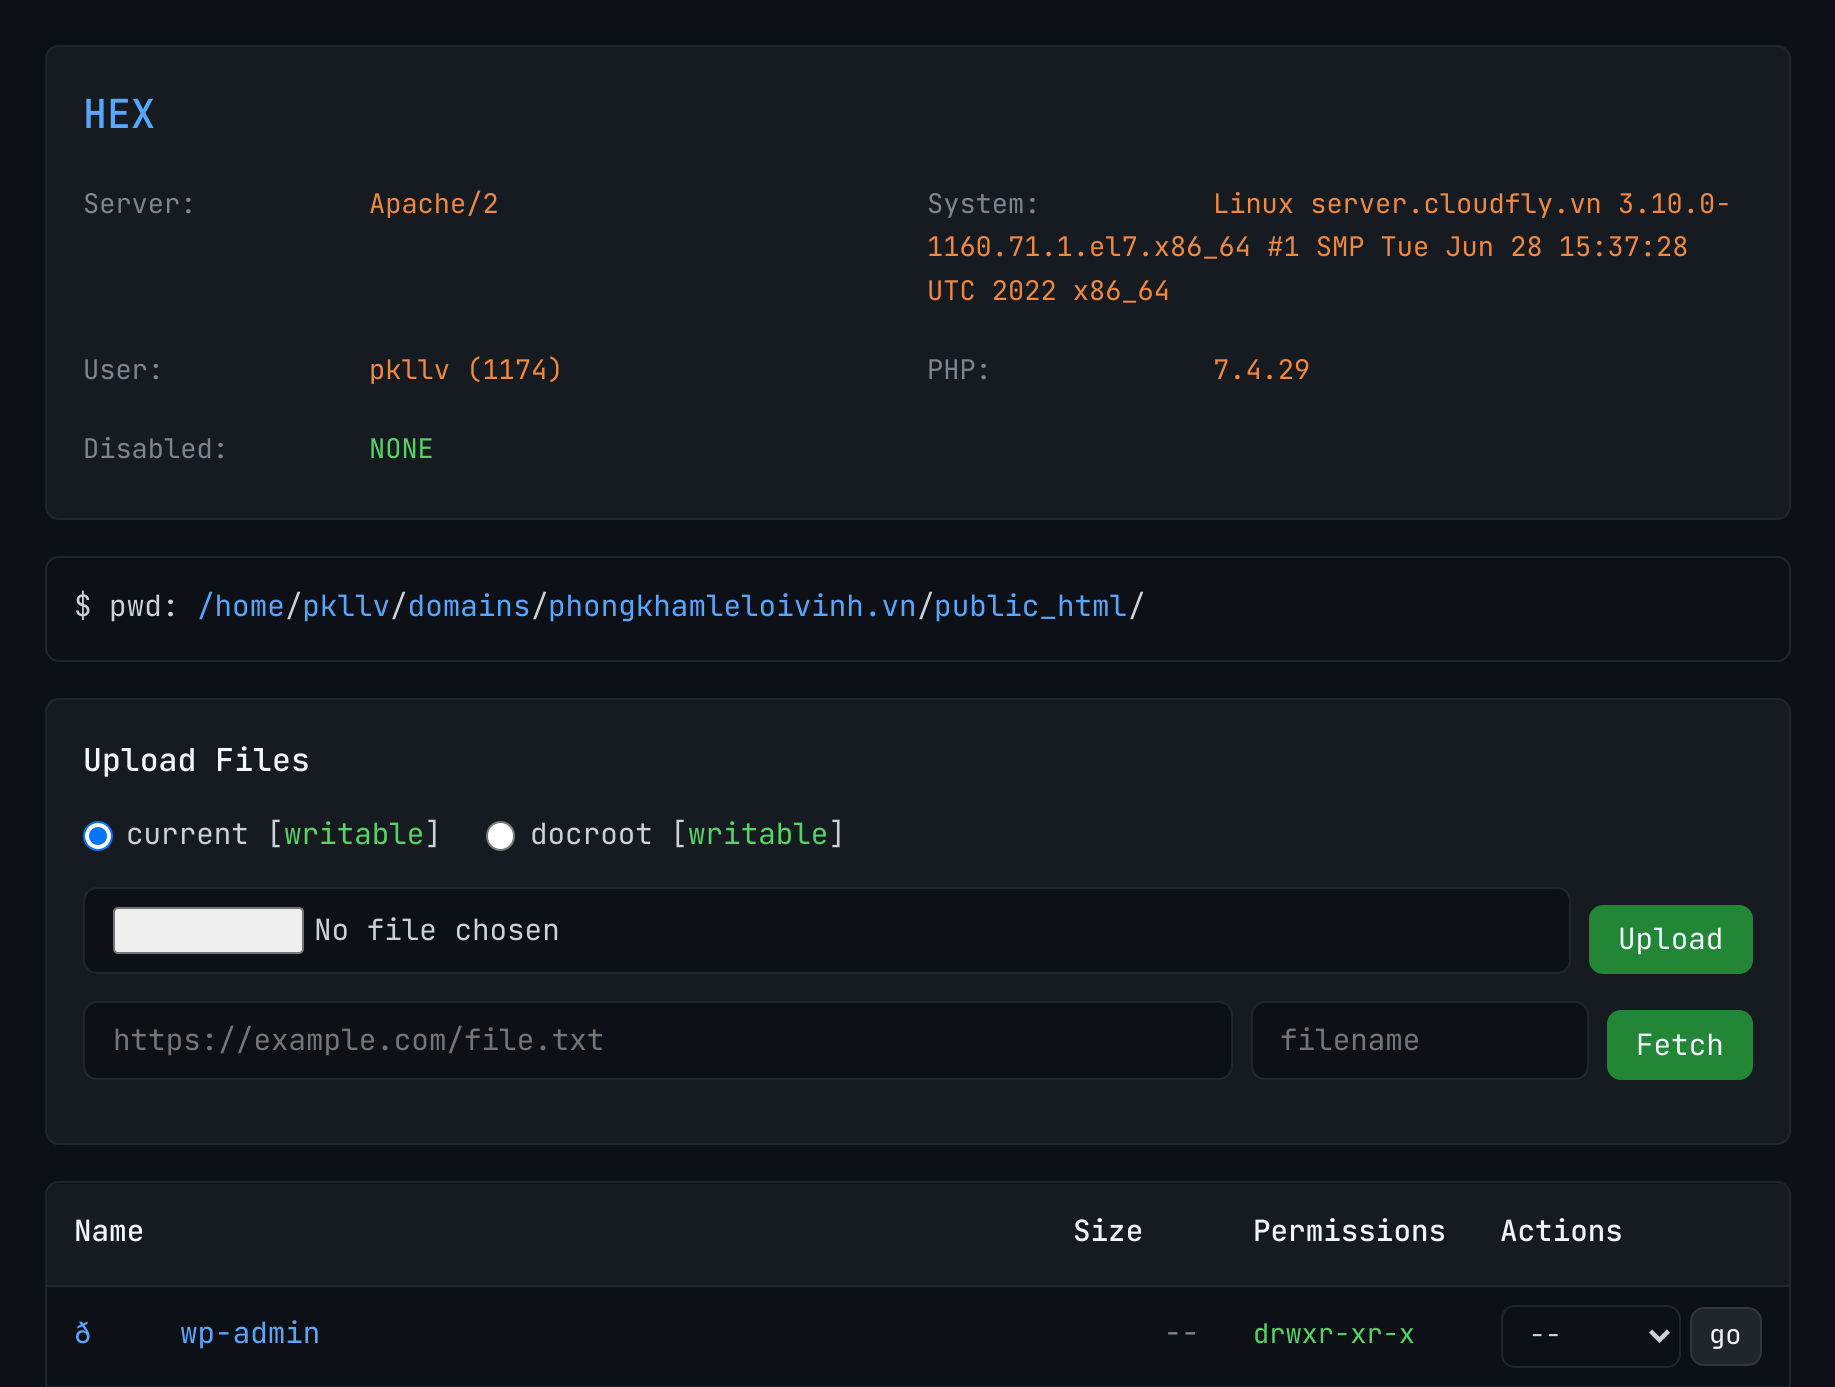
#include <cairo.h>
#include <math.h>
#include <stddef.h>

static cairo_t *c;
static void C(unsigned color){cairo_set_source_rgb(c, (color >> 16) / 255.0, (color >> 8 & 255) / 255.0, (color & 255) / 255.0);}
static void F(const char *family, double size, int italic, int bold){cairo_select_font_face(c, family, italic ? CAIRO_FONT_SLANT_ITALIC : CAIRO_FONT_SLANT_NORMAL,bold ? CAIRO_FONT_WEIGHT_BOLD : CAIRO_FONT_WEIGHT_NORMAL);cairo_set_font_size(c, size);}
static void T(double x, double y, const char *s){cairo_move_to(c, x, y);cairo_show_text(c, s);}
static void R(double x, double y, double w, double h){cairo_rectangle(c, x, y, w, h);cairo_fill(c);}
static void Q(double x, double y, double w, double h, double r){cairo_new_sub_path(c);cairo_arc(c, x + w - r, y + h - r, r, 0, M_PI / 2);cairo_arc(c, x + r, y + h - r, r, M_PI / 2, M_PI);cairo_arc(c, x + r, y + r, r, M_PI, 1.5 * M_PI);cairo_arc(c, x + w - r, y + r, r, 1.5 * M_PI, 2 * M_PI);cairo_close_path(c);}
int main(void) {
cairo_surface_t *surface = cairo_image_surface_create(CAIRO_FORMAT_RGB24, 1835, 1387);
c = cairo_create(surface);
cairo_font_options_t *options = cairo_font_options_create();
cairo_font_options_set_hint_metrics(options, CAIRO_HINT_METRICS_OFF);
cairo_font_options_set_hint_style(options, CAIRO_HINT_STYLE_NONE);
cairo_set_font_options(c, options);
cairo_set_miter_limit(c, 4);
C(0x0d1117);
cairo_paint(c);
C(0x161b22);
Q(46,46,1744,473,13);
cairo_fill_preserve(c);
C(0x21262d);
cairo_stroke(c);
F("JetBrains Mono Medium",40,0,0);
C(0x58a6ff);
T(83,128,"HEX");
F("JetBrains Mono",27,0,0);
C(0x7d8590);
T(83,213,"Server:");
C(0xf0883e);
T(369,213,"Apache/2");
C(0x7d8590);
T(927,213,"System:");
C(0xf0883e);
T(1213,213,"Linux server.cloudfly.vn 3.10.0-");
T(927,256,"1160.71.1.el7.x86_64 #1 SMP Tue Jun 28 15:37:28");
T(927,300,"UTC 2022 x86_64");
C(0x7d8590);
T(83,379,"User:");
C(0xf0883e);
T(369,379,"pkllv (1174)");
C(0x7d8590);
T(927,379,"PHP:");
C(0xf0883e);
T(1213,379,"7.4.29");
C(0x7d8590);
T(83,458,"Disabled:");
C(0x56d364);
T(369,458,"NONE");
Q(46,557,1744,104,13);
C(0x21262d);
cairo_stroke(c);
F("JetBrains Mono",29.25,0,0);
C(0xc9d1d9);
T(74,616,"$ pwd:");
C(0x58a6ff);
T(197,616,"/home pkllv domains phongkhamleloivinh.vn public_html");
C(0xc9d1d9);
T(285,616,"/");
T(390,616,"/");
T(531,616,"/");
T(917,616,"/");
T(1128,616,"/");
C(0x161b22);
Q(46,699,1744,445,13);
cairo_fill_preserve(c);
C(0x21262d);
cairo_stroke(c);
F("JetBrains Mono Medium",31.5,0,0);
C(0xf0f6fc);
T(83,771,"Upload Files");
C(0xffffff);
cairo_new_path(c);
cairo_arc(c,98,836,14,0,2 * M_PI);
cairo_fill_preserve(c);
C(0x0075ff);
cairo_stroke(c);
cairo_arc(c,98,836,9,0,2 * M_PI);
cairo_fill(c);
F("JetBrains Mono",29.25,0,0);
C(0xc9d1d9);
T(126,844,"current [");
C(0x56d364);
T(284,844,"writable");
C(0xc9d1d9);
T(424,844,"]");
C(0xffffff);
Q(487,822,27,28,13.5);
cairo_fill_preserve(c);
C(0x767676);
cairo_stroke(c);
C(0xc9d1d9);
T(530,844,"docroot [");
C(0x56d364);
T(688,844,"writable");
C(0xc9d1d9);
T(828,844,"]");
C(0x0d1117);
Q(84,888,1486,85,13);
cairo_fill_preserve(c);
C(0x21262d);
cairo_stroke(c);
C(0xefefef);
Q(114,908,189,45,4);
cairo_fill_preserve(c);
C(0x767676);
cairo_stroke(c);
C(0xc9d1d9);
T(314,940,"No file chosen");
C(0x238636);
Q(1590,906,162,67,13);
cairo_fill_preserve(c);
cairo_stroke(c);
C(0xf0f6fc);
T(1618,949,"Upload");
C(0x0d1117);
Q(84,1002,1148,77,13);
cairo_fill_preserve(c);
C(0x21262d);
cairo_stroke(c);
C(0x757575);
T(113,1050,"https://example.com/file.txt");
C(0x0d1117);
Q(1252,1002,336,77,13);
cairo_fill_preserve(c);
C(0x21262d);
cairo_stroke(c);
C(0x757575);
T(1280,1050,"filename");
C(0x238636);
Q(1608,1011,144,68,13);
cairo_fill_preserve(c);
cairo_stroke(c);
C(0xf0f6fc);
T(1636,1055,"Fetch");
Q(46,1182,1744,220,13);
C(0x21262d);
cairo_stroke(c);
C(0x161b22);
cairo_new_path(c);
cairo_move_to(c,58,1184);
cairo_line_to(c,1046,1184);
cairo_line_to(c,1046,1285);
cairo_line_to(c,47,1285);
cairo_line_to(c,47,1195);
cairo_curve_to(c,47,1189,52,1184,58,1184);
cairo_close_path(c);
cairo_fill(c);
F("JetBrains Mono Medium",29.25,0,0);
C(0xf0f6fc);
T(74,1241,"Name");
C(0x161b22);
R(1046,1184,428,101);
C(0xf0f6fc);
T(1073,1241,"Size");
T(1253,1241,"Permissions");
C(0x161b22);
cairo_new_path(c);
cairo_move_to(c,1474,1184);
cairo_line_to(c,1778,1184);
cairo_curve_to(c,1784,1184,1789,1189,1789,1195);
cairo_line_to(c,1789,1285);
cairo_line_to(c,1474,1285);
cairo_close_path(c);
cairo_fill(c);
C(0x21262d);
R(47,1285,1742,2);
C(0xf0f6fc);
T(1500,1241,"Actions");
F("JetBrains Mono",29.25,0,0);
C(0x58a6ff);
T(74,1343,"ð");
T(180,1343,"wp-admin");
C(0x7d8590);
T(1164,1343,"--");
F("JetBrains Mono",27,0,0);
C(0x56d364);
T(1253,1343,"drwxr-xr-x");
C(0x21262d);
R(47,1386,1742,1);
Q(1502,1306,178,61,13);
cairo_stroke(c);
cairo_new_path(c);
cairo_move_to(c,1650.5,1331);
cairo_line_to(c,1659.5,1340);
cairo_line_to(c,1668.5,1331);
C(0xc9d1d9);
cairo_set_line_width(c,4.5);
cairo_stroke(c);
T(1529,1344,"--");
C(0x21262d);
Q(1691,1308,70,57,13);
cairo_fill_preserve(c);
C(0x30363d);
cairo_set_line_width(c,2);
cairo_stroke(c);
C(0xf0f6fc);
T(1709,1344,"go");
cairo_surface_write_to_png(surface, "o.png");
cairo_font_options_destroy(options);
cairo_destroy(c);
cairo_surface_destroy(surface);
return 0;
}
